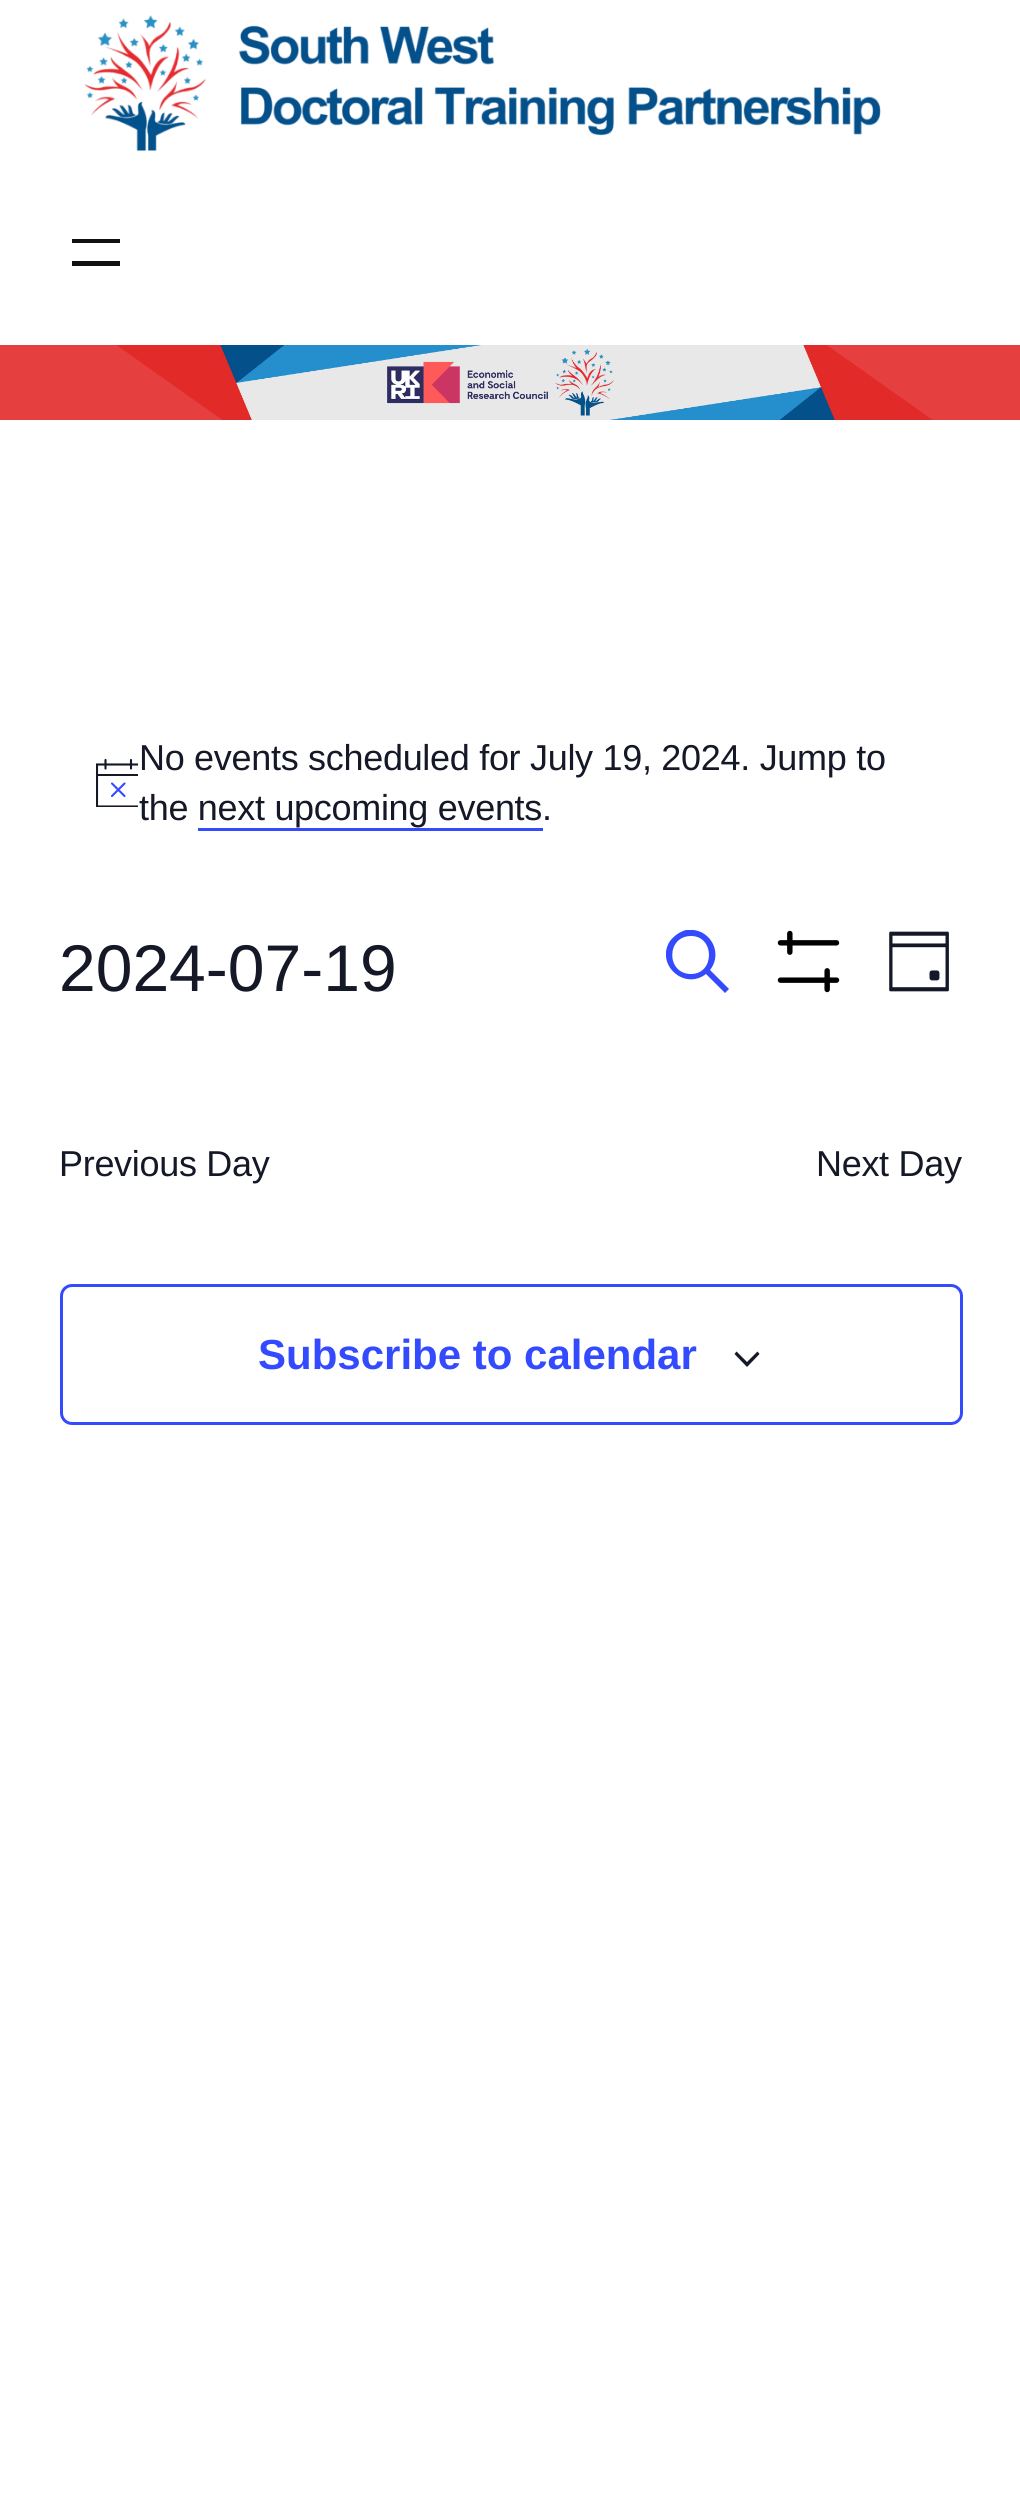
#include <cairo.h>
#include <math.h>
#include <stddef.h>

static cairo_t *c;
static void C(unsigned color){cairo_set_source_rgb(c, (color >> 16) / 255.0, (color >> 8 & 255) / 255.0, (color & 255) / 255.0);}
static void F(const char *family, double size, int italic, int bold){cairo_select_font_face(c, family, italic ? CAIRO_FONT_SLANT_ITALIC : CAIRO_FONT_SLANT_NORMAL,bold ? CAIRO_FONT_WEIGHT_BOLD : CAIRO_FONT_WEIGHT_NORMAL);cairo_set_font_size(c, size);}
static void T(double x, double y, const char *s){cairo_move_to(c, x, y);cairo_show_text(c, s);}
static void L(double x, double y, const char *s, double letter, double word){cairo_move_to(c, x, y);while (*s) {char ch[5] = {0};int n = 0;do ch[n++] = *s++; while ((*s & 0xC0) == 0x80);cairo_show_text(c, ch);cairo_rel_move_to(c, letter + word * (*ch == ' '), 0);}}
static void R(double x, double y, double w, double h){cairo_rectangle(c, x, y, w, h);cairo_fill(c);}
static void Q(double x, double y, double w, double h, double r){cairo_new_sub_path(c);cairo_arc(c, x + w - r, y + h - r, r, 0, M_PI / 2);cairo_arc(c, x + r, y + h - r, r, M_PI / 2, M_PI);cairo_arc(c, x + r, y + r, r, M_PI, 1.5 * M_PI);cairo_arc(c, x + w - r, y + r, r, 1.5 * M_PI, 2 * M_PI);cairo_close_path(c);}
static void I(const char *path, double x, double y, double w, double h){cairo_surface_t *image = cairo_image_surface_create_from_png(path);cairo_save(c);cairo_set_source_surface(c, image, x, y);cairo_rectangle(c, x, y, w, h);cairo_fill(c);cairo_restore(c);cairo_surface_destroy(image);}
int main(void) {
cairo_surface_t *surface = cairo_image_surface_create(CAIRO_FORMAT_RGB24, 1020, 2513);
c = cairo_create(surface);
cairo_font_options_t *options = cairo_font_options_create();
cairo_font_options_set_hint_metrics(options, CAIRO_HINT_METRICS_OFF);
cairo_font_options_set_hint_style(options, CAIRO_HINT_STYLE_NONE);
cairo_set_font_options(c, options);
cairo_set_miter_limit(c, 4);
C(0xffffff);
cairo_paint(c);
I("1.png",84,15,797,137);
C(0x111111);
R(72,239,48,4);
R(72,261,48,5);
I("2.png",0,345,1020,75);
cairo_save(c);
cairo_rectangle(c,96,759,42,48);
cairo_clip(c);
cairo_new_path(c);
cairo_move_to(c,97,764.5);
cairo_line_to(c,139.5,764.5);
cairo_line_to(c,139.5,806.5);
cairo_line_to(c,97,806.5);
cairo_close_path(c);
C(0x141827);
cairo_set_line_width(c,2.1);
cairo_stroke(c);
cairo_restore(c);
cairo_new_path(c);
cairo_move_to(c,112,783.5);
cairo_line_to(c,124.5,796);
cairo_move_to(c,124.5,783.5);
cairo_line_to(c,112,796);
C(0x334aff);
cairo_set_line_width(c,2.1);
cairo_set_line_cap(c,CAIRO_LINE_CAP_ROUND);
cairo_stroke(c);
cairo_new_path(c);
cairo_move_to(c,105.5,760);
cairo_line_to(c,105.5,768.5);
cairo_move_to(c,131,760);
cairo_line_to(c,131,768.5);
C(0x141827);
cairo_stroke(c);
R(96,774,42,2);
F("Liberation Sans",36,0,0);
L(139,770,"No events scheduled for July 19, 2024. Jump to",-.3,0);
L(139,820,"the next upcoming events.",-.3,0);
C(0x334aff);
R(198,828,345,3);
F("Liberation Sans",66,0,0);
C(0x141827);
T(59,991,"2024-07-19");
cairo_save(c);
cairo_rectangle(c,666,930,63,63);
cairo_clip(c);
C(0x334aff);
cairo_set_fill_rule(c,CAIRO_FILL_RULE_EVEN_ODD);
cairo_new_path(c);
cairo_move_to(c,710,970);
cairo_line_to(c,729,989);
cairo_line_to(c,725,993);
cairo_line_to(c,706,974);
cairo_curve_to(c,684,991,655,964,670,941);
cairo_curve_to(c,674,936,679,932,686,930);
cairo_curve_to(c,694,929,702,931,708,937);
cairo_curve_to(c,717,946,718,960,710,970);
cairo_close_path(c);
cairo_move_to(c,691,936);
cairo_curve_to(c,666,936,666,974,691,974);
cairo_curve_to(c,715,974,715,936,691,936);
cairo_close_path(c);
cairo_fill(c);
cairo_restore(c);
I("3.png",777,930,63,63);
I("4.png",889,931,60,61);
F("Liberation Sans",36,0,0);
L(59,1176,"Previous Day",-.3,0);
L(816,1176,"Next Day",-.3,0);
Q(61.5,1285.5,900,138,10.5);
C(0x334aff);
cairo_set_line_width(c,3);
cairo_set_line_cap(c,CAIRO_LINE_CAP_BUTT);
cairo_stroke(c);
F("Liberation Sans",42,0,1);
T(258,1369,"Subscribe to calendar");
C(0x141827);
cairo_set_fill_rule(c,CAIRO_FILL_RULE_EVEN_ODD);
cairo_new_path(c);
cairo_move_to(c,736.5,1351.5);
cairo_line_to(c,747,1362);
cairo_line_to(c,757.5,1351.5);
cairo_line_to(c,759.5,1354);
cairo_line_to(c,747,1367);
cairo_line_to(c,734.5,1354);
cairo_close_path(c);
cairo_fill(c);
cairo_surface_write_to_png(surface, "o.png");
cairo_font_options_destroy(options);
cairo_destroy(c);
cairo_surface_destroy(surface);
return 0;
}
